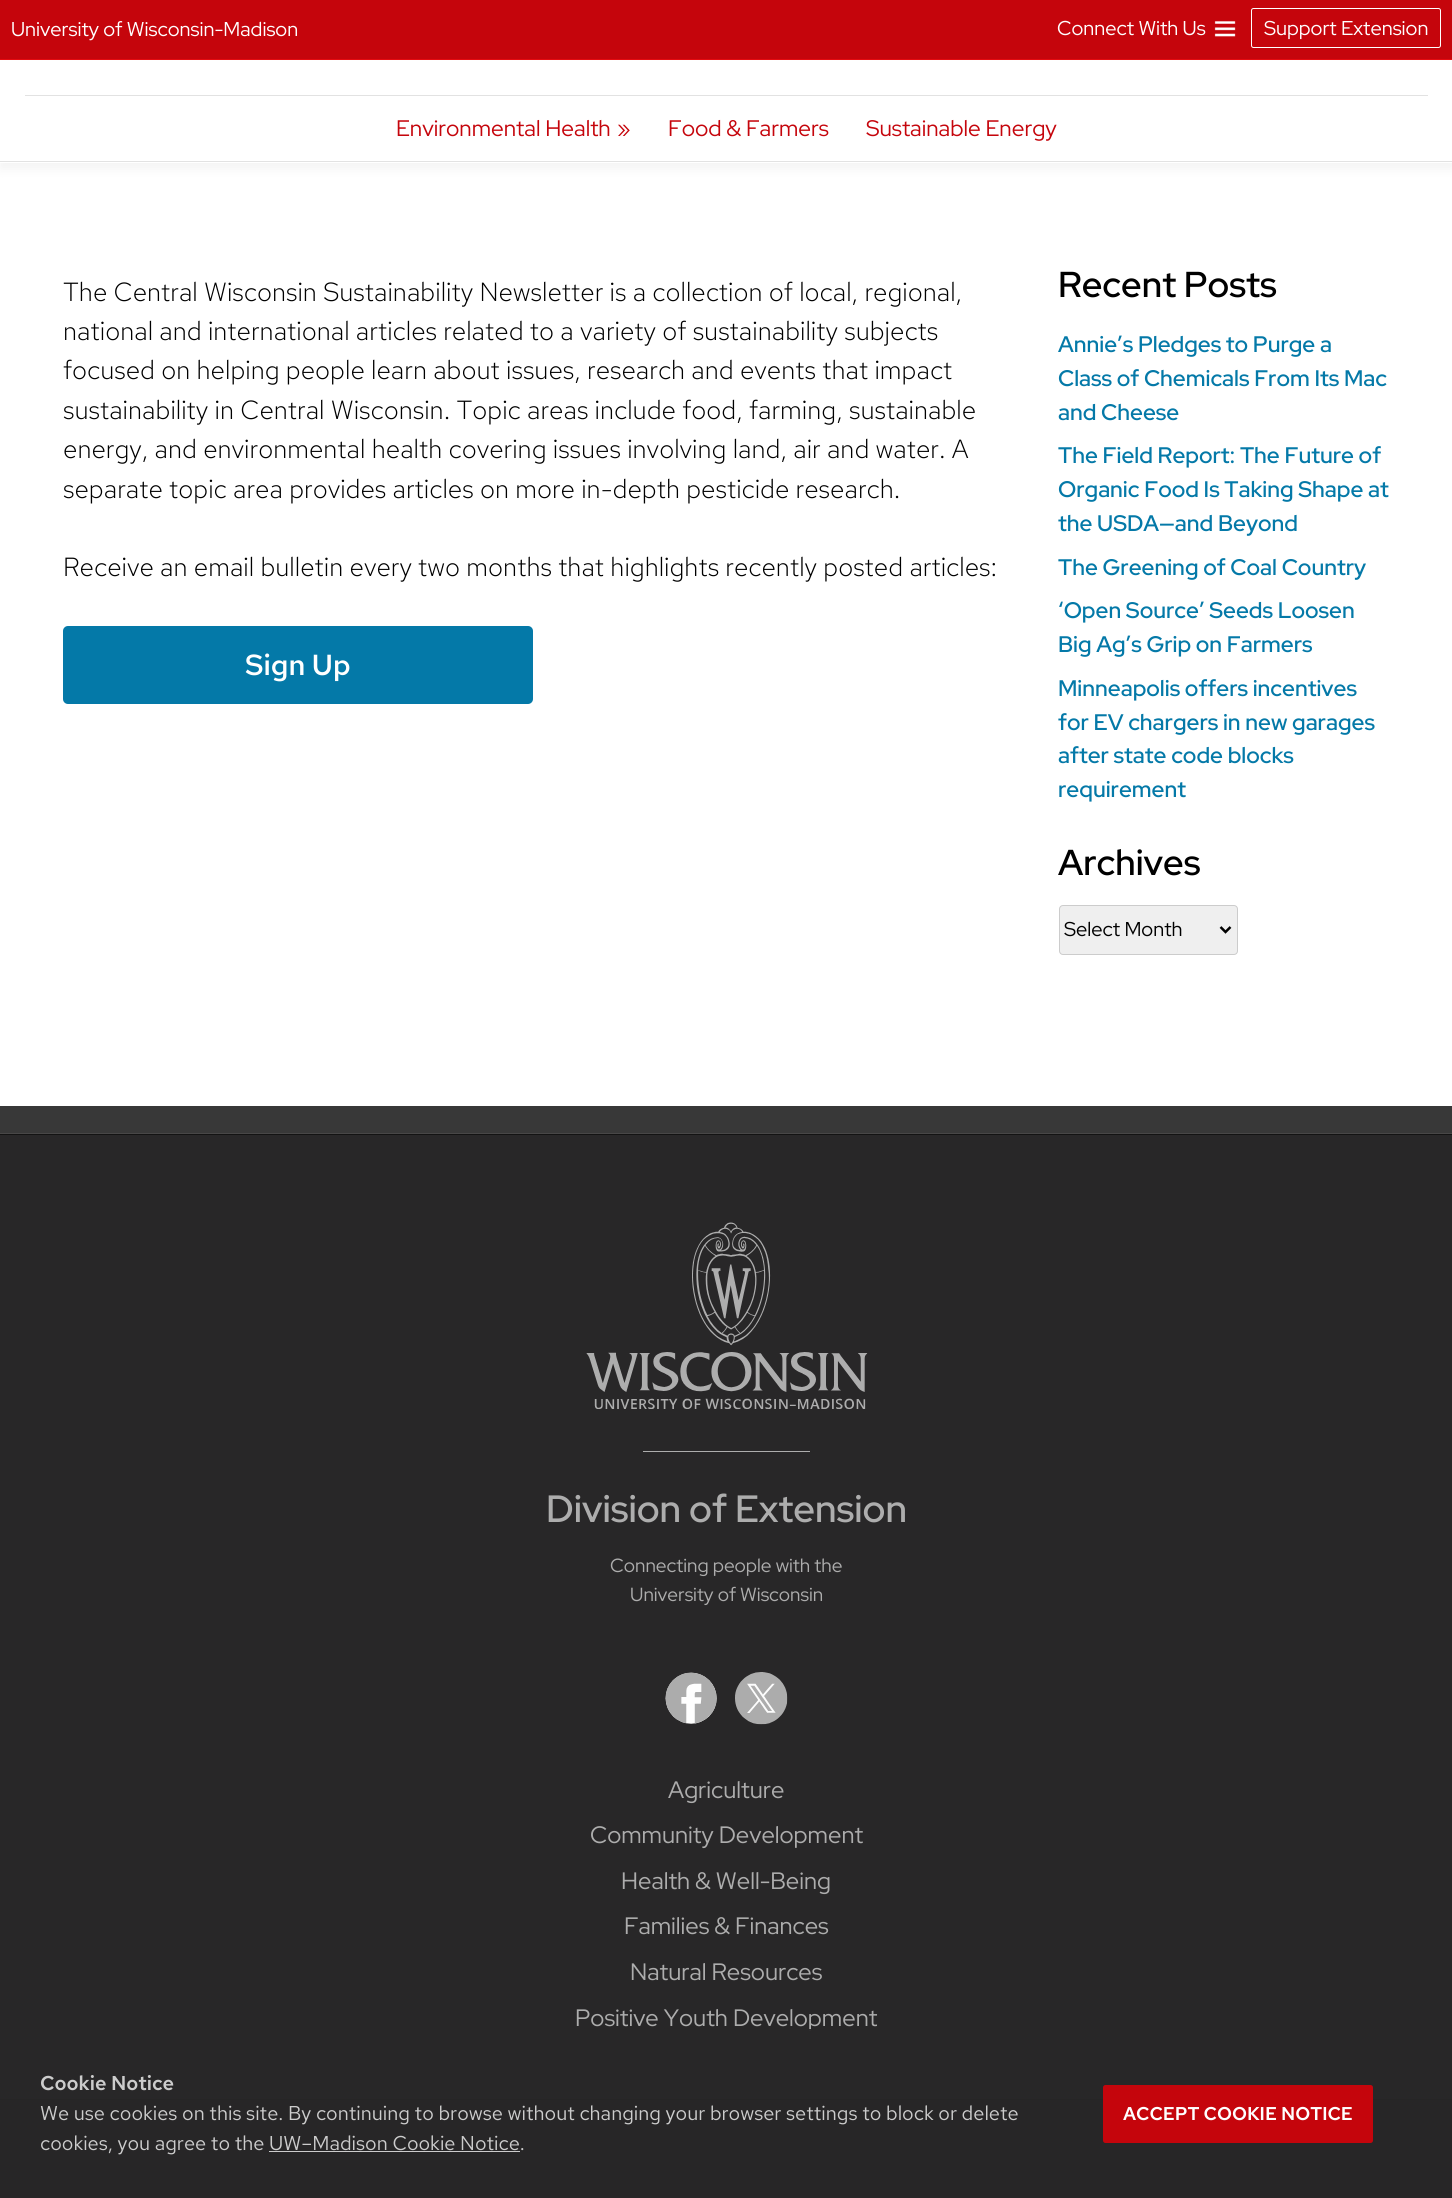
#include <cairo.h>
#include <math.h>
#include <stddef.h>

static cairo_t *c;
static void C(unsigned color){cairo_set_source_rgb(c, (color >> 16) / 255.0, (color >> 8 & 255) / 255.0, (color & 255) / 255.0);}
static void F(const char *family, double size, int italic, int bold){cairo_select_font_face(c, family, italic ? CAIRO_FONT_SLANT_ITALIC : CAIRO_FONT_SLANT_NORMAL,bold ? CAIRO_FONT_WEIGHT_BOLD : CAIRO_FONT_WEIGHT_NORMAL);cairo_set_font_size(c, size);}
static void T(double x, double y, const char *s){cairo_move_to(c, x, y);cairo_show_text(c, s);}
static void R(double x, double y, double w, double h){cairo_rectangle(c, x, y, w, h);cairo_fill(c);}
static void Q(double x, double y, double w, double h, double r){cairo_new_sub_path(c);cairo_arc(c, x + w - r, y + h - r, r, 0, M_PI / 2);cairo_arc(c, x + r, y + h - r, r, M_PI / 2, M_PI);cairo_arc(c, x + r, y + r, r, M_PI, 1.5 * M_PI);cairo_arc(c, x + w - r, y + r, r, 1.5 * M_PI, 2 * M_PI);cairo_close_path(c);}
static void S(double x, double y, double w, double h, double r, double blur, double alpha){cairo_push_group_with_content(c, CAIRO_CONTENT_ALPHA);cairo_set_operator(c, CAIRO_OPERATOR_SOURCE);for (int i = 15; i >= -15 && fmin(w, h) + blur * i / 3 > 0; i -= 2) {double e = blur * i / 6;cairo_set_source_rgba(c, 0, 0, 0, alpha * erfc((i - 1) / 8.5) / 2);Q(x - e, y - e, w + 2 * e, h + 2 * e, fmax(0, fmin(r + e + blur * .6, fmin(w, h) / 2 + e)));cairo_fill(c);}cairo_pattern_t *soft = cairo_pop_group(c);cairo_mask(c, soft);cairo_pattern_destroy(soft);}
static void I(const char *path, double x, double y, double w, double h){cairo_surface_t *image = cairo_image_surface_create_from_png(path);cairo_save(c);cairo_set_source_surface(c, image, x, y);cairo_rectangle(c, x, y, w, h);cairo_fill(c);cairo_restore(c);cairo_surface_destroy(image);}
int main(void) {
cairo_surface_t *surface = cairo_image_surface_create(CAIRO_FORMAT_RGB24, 1452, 2198);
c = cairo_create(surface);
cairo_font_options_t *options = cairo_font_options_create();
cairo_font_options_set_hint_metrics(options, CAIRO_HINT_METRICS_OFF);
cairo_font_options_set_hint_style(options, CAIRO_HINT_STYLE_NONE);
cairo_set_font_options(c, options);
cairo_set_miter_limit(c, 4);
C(0xffffff);
cairo_paint(c);
cairo_save(c);
cairo_set_fill_rule(c,CAIRO_FILL_RULE_EVEN_ODD);
cairo_new_path(c);
cairo_move_to(c,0,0);
cairo_line_to(c,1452,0);
cairo_line_to(c,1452,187);
cairo_line_to(c,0,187);
cairo_close_path(c);
cairo_move_to(c,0,-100);
cairo_line_to(c,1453,-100);
cairo_line_to(c,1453,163);
cairo_line_to(c,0,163);
cairo_close_path(c);
cairo_clip(c);
C(0xc3c3c3);
S(0,-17,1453,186,0,5.5,.2);
cairo_restore(c);
C(0xc5050c);
R(0,0,1452,59);
C(0xe40b10);
R(0,59,1452,1);
F("Red Hat Display",20,0,0);
C(0xffffff);
T(11,36,"University of Wisconsin-Madison");
I("1.png",1214,21,22,16);
T(1057,35,"Connect With Us");
Q(1251.5,8.5,189,39,2);
cairo_set_line_width(c,1);
cairo_stroke(c);
T(1264,35,"Support Extension");
C(0xe2e2e2);
R(0,161,1452,1);
R(25,95,1403,1);
F("Red Hat Display",22.5,0,0);
C(0xc5050c);
T(396,136,"Environmental Health");
T(617,136,"»");
T(668,136,"Food & Farmers");
T(866,136,"Sustainable Energy");
F("Red Hat Text Light",26.25,0,0);
C(0x000000);
T(63,301,"The Central Wisconsin Sustainability Newsletter is a collection of local, regional,");
T(63,340,"national and international articles related to a variety of sustainability subjects");
T(63,379,"focused on helping people learn about issues, research and events that impact");
T(63,419,"sustainability in Central Wisconsin. Topic areas include food, farming, sustainable");
T(63,458,"energy, and environmental health covering issues involving land, air and water. A");
T(63,498,"separate topic area provides articles on more in-depth pesticide research.");
T(63,576,"Receive an email bulletin every two months that highlights recently posted articles:");
C(0x0479a8);
Q(63,626,470,78,5);
cairo_fill(c);
F("Red Hat Text SemiBold",29,0,0);
C(0xffffff);
T(245,675,"Sign Up");
F("Red Hat Display SemiBold",36,0,0);
C(0x000000);
T(1058,297,"Recent Posts");
F("Red Hat Display SemiBold",22.5,0,0);
C(0x0479a8);
T(1058,352,"Annie’s Pledges to Purge a");
T(1058,386,"Class of Chemicals From Its Mac");
T(1058,420,"and Cheese");
T(1058,463,"The Field Report: The Future of");
T(1058,497,"Organic Food Is Taking Shape at");
T(1058,531,"the USDA—and Beyond");
T(1058,575,"The Greening of Coal Country");
T(1058,618,"‘Open Source’ Seeds Loosen");
T(1058,652,"Big Ag’s Grip on Farmers");
T(1058,696,"Minneapolis offers incentives");
T(1058,730,"for EV chargers in new garages");
T(1058,763,"after state code blocks");
T(1058,797,"requirement");
F("Red Hat Display SemiBold",36,0,0);
C(0x000000);
T(1058,875,"Archives");
C(0xefefef);
Q(1059.5,905.5,178,49,3.5);
cairo_fill_preserve(c);
C(0xcccccc);
cairo_stroke(c);
cairo_new_path(c);
cairo_move_to(c,1220.5,927);
cairo_line_to(c,1225.5,932);
cairo_line_to(c,1230.5,927);
C(0x000000);
cairo_set_line_width(c,2.5);
cairo_stroke(c);
F("Red Hat Display",20,0,0);
T(1064,936,"Select Month");
C(0x383838);
R(0,1106,1452,27);
C(0x484747);
R(0,1133,1452,1);
C(0x282728);
R(0,1135,1452,963);
C(0x131313);
R(0,1134,1452,1);
C(0x333333);
R(0,2098,1452,1);
I("2.png",586,1222,282,188);
C(0xadadad);
R(643,1451,167,1);
F("Red Hat Display SemiBold",38,0,0);
T(546,1522,"Division of Extension");
F("Red Hat Display",19,0,0);
T(610,1572,"Connecting people with the");
T(630,1601,"University of Wisconsin");
I("3.png",665,1672,52,52);
I("4.png",735,1672,53,53);
F("Red Hat Display",23.75,0,0);
T(668,1798,"Agriculture");
T(590,1843,"Community Development");
T(621,1889,"Health & Well-Being");
T(624,1934,"Families & Finances");
T(630,1980,"Natural Resources");
T(575,2026,"Positive Youth Development");
C(0x1f1f1f);
R(0,2100,1452,98);
C(0x060606);
R(0,2099,1452,1);
cairo_set_source_rgba(c,0.157,0.153,0.157,0.95);
R(0,2029,1452,169);
F("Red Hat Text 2 SemiBold",20,0,0);
C(0xcccccc);
T(40,2090,"Cookie Notice");
F("Red Hat Text",20,0,0);
T(40,2120,"We use cookies on this site. By continuing to browse without changing your browser settings to block or delete");
T(40,2150,"cookies, you agree to the UW–Madison Cookie Notice.");
R(269,2151,251,1);
C(0xc5050c);
Q(1103,2085,270,58,2.5);
cairo_fill(c);
F("Red Hat Text 2 SemiBold",18.5,0,0);
C(0xffffff);
T(1123,2120,"ACCEPT COOKIE NOTICE");
cairo_surface_write_to_png(surface, "o.png");
cairo_font_options_destroy(options);
cairo_destroy(c);
cairo_surface_destroy(surface);
return 0;
}
